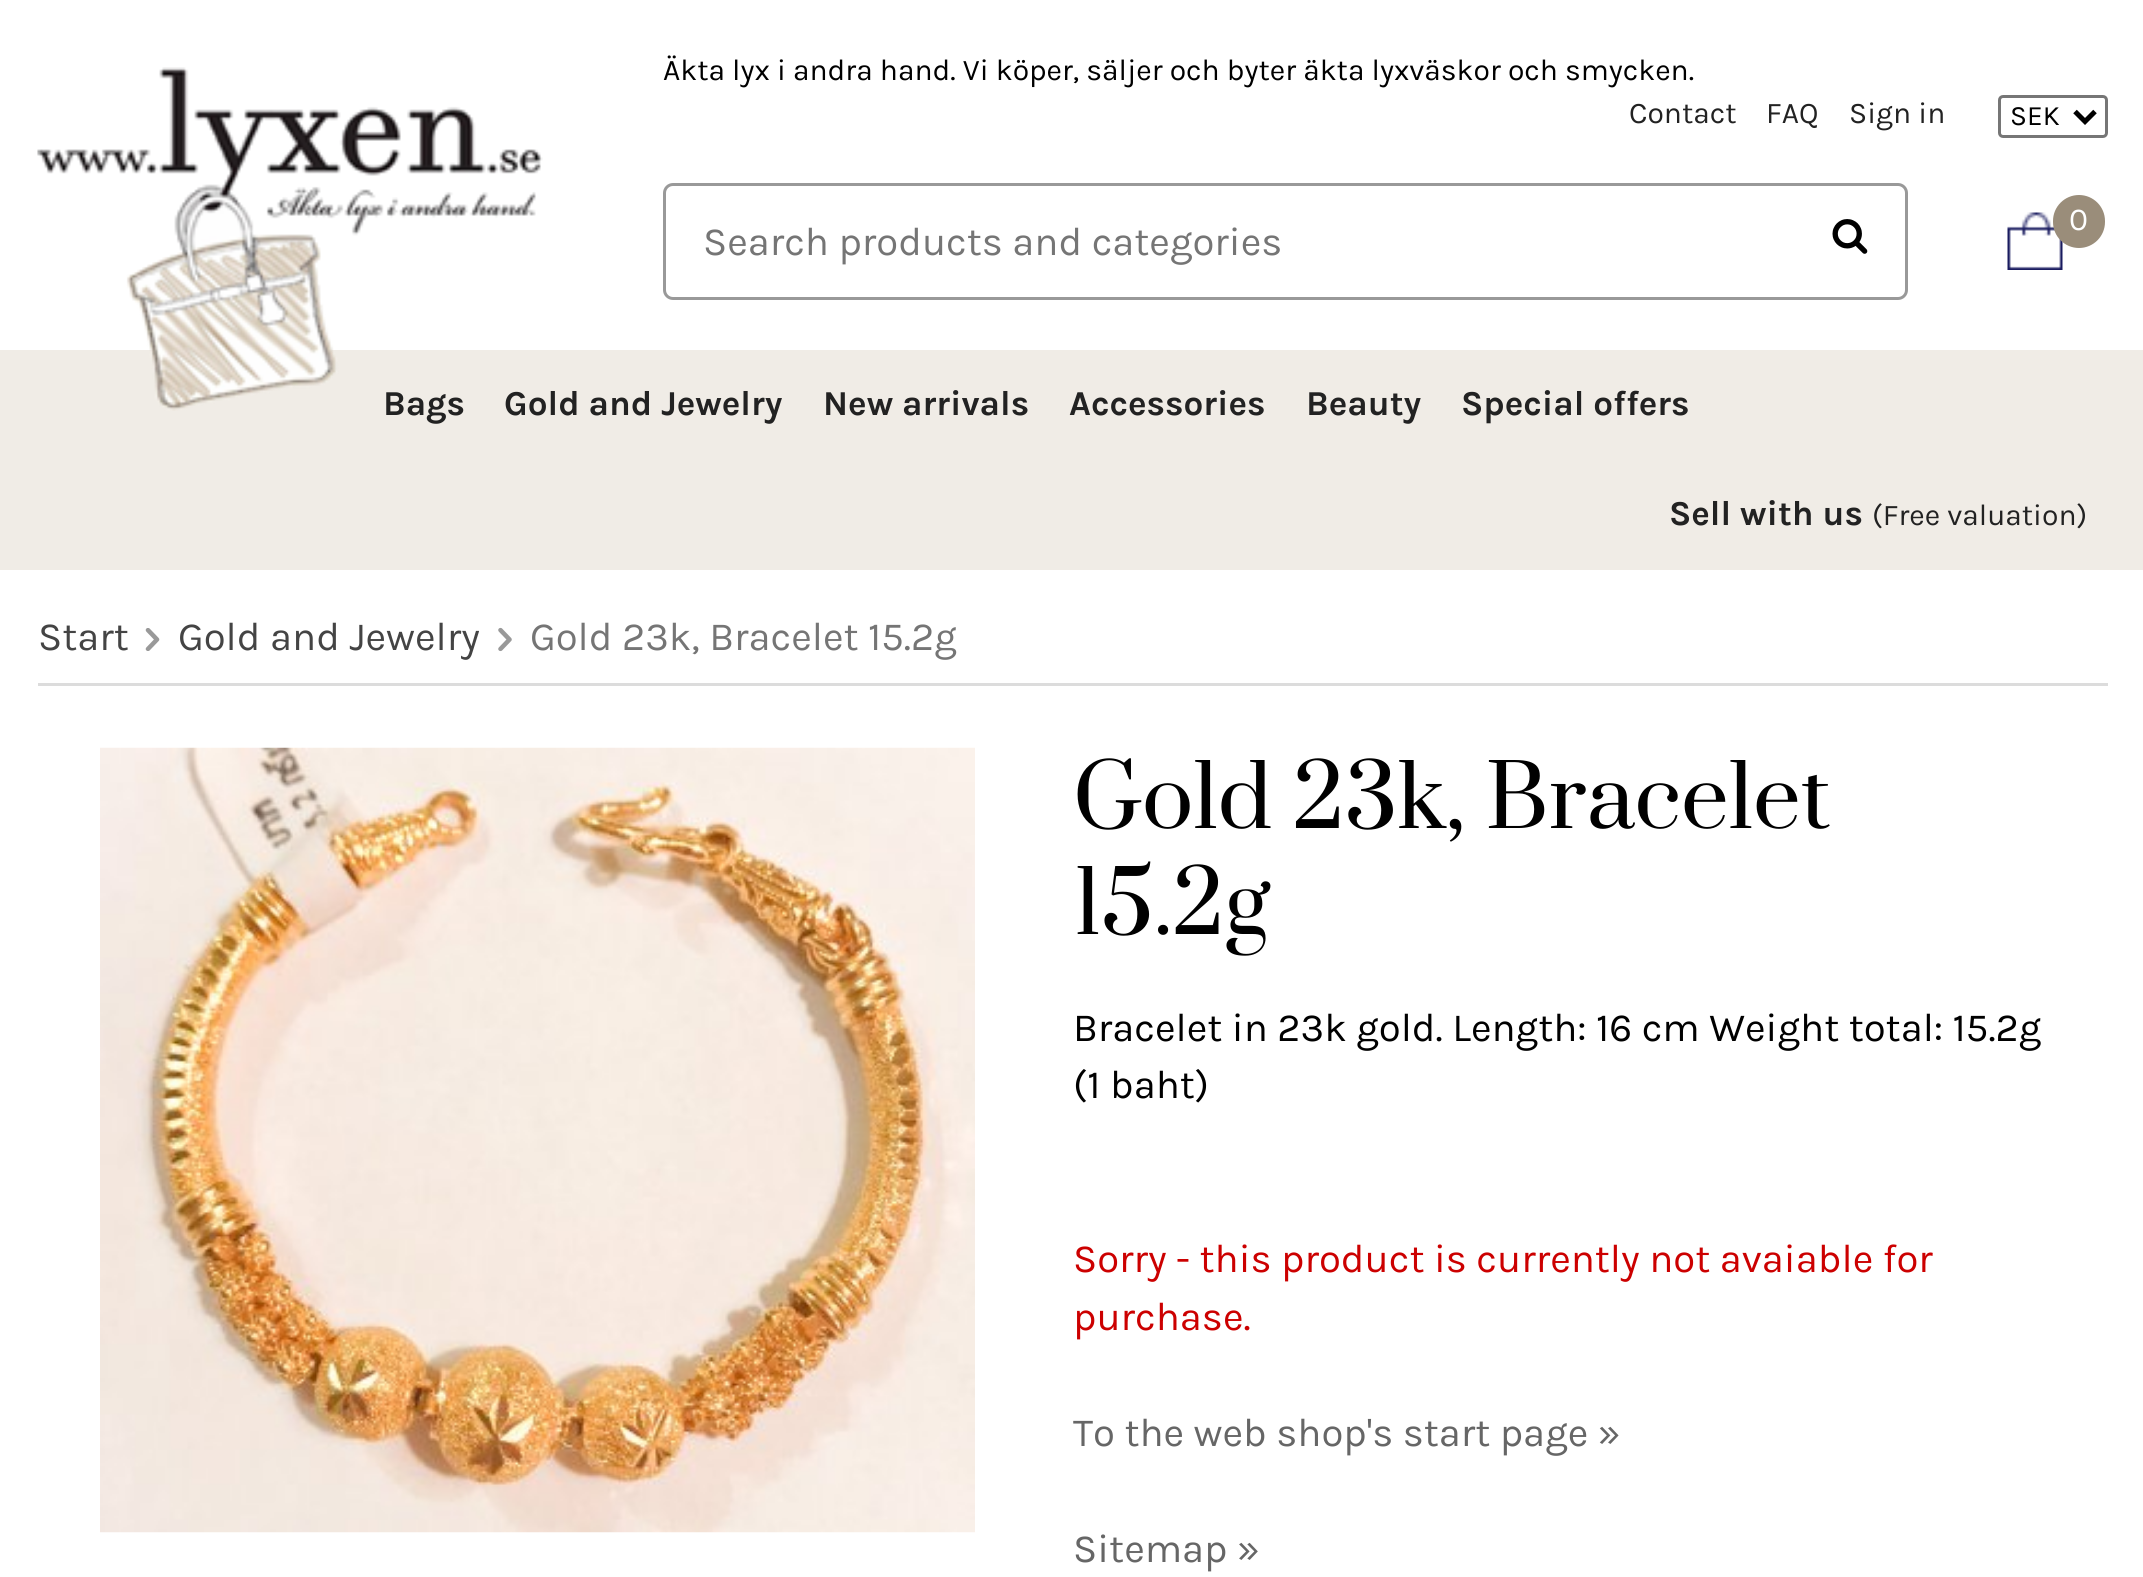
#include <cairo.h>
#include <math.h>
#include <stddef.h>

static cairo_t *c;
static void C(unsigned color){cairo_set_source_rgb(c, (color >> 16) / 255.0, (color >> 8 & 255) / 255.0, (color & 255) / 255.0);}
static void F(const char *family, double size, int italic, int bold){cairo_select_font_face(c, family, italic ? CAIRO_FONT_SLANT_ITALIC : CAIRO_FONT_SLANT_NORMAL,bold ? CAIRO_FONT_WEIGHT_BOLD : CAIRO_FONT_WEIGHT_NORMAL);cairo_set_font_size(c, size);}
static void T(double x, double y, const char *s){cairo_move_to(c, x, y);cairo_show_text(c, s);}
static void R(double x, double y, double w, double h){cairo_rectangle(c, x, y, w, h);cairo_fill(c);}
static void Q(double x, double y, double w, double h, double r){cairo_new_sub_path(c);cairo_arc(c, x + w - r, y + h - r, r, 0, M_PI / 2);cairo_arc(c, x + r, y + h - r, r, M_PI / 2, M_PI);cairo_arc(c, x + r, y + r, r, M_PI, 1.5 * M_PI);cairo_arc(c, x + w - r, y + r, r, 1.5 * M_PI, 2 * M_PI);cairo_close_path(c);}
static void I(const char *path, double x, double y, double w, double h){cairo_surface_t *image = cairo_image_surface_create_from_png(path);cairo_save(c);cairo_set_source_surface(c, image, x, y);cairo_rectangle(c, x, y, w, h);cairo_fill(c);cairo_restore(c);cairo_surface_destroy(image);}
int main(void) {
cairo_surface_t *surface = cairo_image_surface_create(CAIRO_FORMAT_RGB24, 2143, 1577);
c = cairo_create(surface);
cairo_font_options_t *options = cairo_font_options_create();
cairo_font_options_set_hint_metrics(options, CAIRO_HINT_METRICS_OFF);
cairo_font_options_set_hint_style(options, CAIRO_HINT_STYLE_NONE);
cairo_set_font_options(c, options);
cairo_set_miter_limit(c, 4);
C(0xffffff);
cairo_paint(c);
C(0xf0ece6);
R(0,350,2143,220);
I("1.png",37,67,506,344);
F("Karla",30,0,0);
C(0x000000);
T(663,80,"Äkta lyx i andra hand. Vi köper, säljer och byter äkta lyxväskor och smycken.");
C(0x222222);
T(1629,123,"Contact");
T(1766,123,"FAQ");
T(1849,123,"Sign in");
Q(1999.5,96.5,107,40,3.5);
C(0x767676);
cairo_set_line_width(c,3);
cairo_stroke(c);
cairo_new_path(c);
cairo_move_to(c,2075,111.5);
cairo_line_to(c,2085,121.5);
cairo_line_to(c,2095,111.5);
C(0x000000);
cairo_set_line_width(c,5);
cairo_stroke(c);
F("Karla",28,0,0);
T(2010,125,"SEK");
I("2.png",2007,212,56,58);
C(0x9a8d7a);
Q(2053,195,52,53,26);
cairo_fill(c);
F("Karla",32,0,0);
C(0xffffff);
T(2069,230,"0");
Q(664.5,184.5,1242,114,8.5);
C(0x999999);
cairo_set_line_width(c,3);
cairo_stroke(c);
F("Karla",40,0,0);
C(0x757575);
T(703,255,"Search products and categories");
I("3.png",1832,219,36,35);
F("Karla",35,0,1);
C(0x222222);
T(383,415,"Bags");
T(504,415,"Gold and Jewelry");
T(823,415,"New arrivals");
T(1069,415,"Accessories");
T(1306,415,"Beauty");
T(1461,415,"Special offers");
T(1669,525,"Sell with us");
F("Karla",30,0,0);
T(1872,525,"(Free valuation)");
C(0xdcdcdc);
R(38,683,2070,3);
F("Karla",40,0,0);
C(0x444444);
T(38,650,"Start");
I("4.png",145,628,15,23);
T(178,650,"Gold and Jewelry");
I("5.png",498,627,14,25);
C(0x757575);
T(530,650,"Gold 23k, Bracelet 15.2g");
I("6.png",100,747,875,786);
F("Prata",85,0,0);
C(0x000000);
T(1073,828,"Gold 23k, Bracelet");
T(1073,934,"15.2g");
F("Karla",40,0,0);
T(1073,1041,"Bracelet in 23k gold. Length: 16 cm Weight total: 15.2g");
T(1073,1098,"(1 baht)");
C(0xcc0000);
T(1073,1272,"Sorry - this product is currently not avaiable for");
T(1073,1330,"purchase.");
C(0x666666);
T(1073,1446,"To the web shop's start page »");
T(1073,1562,"Sitemap »");
cairo_surface_write_to_png(surface, "o.png");
cairo_font_options_destroy(options);
cairo_destroy(c);
cairo_surface_destroy(surface);
return 0;
}
